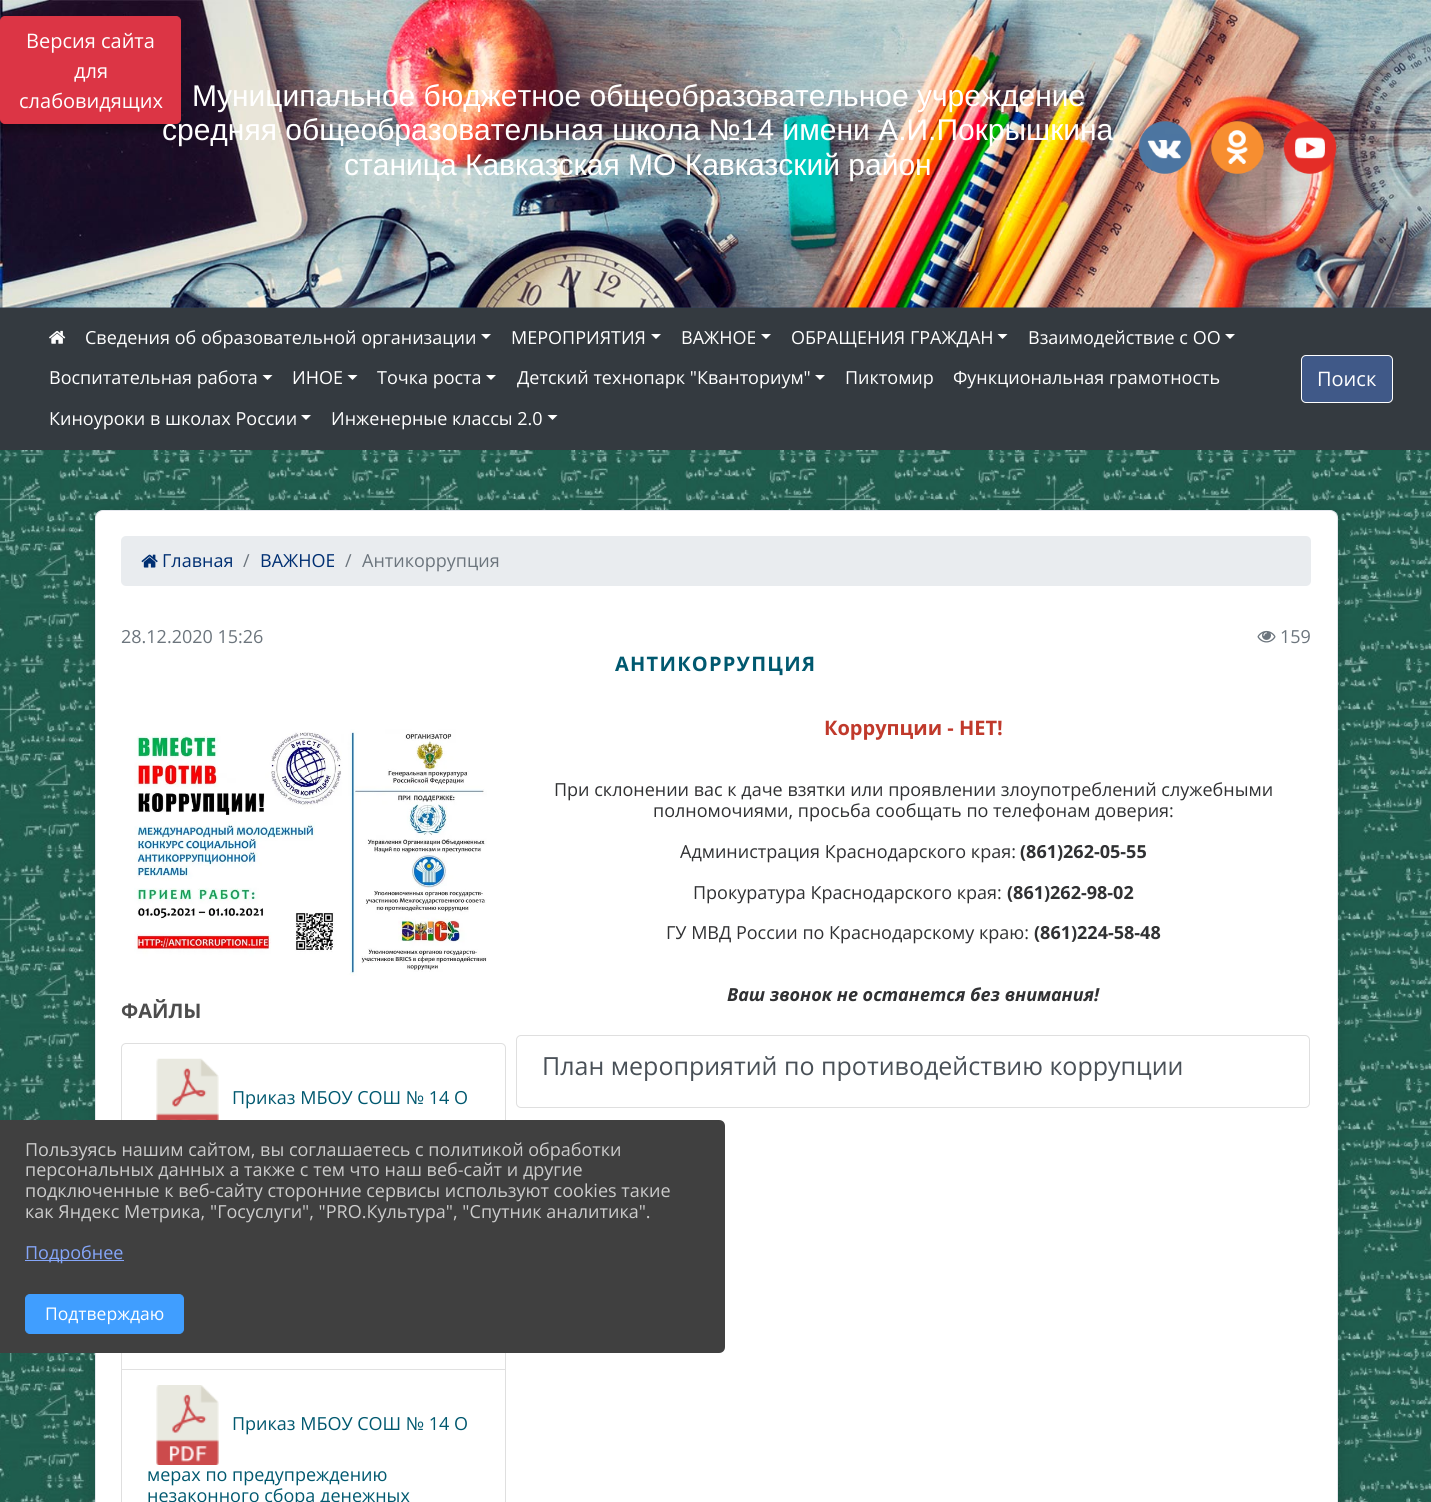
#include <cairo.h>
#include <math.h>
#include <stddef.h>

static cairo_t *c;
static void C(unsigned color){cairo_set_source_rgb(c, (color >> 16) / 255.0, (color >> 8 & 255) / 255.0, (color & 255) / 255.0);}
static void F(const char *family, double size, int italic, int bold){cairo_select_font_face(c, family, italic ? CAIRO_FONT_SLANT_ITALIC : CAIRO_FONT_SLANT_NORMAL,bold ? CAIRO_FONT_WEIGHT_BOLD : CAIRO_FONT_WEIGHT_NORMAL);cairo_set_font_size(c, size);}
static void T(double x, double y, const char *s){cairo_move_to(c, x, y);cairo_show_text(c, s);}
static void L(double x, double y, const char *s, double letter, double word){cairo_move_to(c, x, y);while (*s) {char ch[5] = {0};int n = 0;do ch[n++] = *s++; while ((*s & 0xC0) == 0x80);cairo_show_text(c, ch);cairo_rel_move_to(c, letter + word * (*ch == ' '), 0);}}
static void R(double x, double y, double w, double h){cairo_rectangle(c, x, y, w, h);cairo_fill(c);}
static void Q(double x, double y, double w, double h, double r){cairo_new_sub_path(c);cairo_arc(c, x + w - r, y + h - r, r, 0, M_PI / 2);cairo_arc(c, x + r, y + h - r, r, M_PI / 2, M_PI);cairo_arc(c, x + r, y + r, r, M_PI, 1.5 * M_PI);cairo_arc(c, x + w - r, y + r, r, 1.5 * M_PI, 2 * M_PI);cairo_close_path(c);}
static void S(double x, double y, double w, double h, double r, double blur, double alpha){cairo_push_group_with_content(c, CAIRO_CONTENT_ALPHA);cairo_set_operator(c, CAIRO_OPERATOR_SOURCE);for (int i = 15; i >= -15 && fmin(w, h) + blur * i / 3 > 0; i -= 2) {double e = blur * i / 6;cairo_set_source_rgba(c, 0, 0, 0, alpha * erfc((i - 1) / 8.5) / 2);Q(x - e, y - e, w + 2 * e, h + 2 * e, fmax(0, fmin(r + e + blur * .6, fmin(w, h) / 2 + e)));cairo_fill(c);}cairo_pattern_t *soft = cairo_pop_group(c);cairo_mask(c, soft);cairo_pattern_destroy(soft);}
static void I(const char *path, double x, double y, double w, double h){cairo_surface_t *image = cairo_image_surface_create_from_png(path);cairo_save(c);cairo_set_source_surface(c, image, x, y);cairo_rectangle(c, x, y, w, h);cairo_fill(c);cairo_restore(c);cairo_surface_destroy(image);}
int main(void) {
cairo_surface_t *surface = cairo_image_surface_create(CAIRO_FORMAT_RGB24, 1431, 1502);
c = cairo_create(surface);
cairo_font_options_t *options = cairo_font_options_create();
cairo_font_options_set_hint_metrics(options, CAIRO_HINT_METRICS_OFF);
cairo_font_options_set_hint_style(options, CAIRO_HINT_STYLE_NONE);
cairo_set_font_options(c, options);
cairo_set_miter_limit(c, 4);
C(0xffffff);
cairo_paint(c);
I("1.png",0,450,1431,1052);
C(0x304156);
R(0,307,1431,1);
I("2.png",0,0,1431,308);
C(0x000000);
S(-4,25,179,105,4,5,.35);
F("Liberation Sans",30,0,0);
C(0xffffff);
T(162,140,"средняя общеобразовательная школа №14 имени А.И.Покрышкина");
C(0xdc3545);
Q(.5,16.5,180,107,4.5);
cairo_fill_preserve(c);
cairo_set_line_width(c,1);
cairo_stroke(c);
F("Open Sans",20,0,0);
C(0xffffff);
T(26,48,"Версия сайта");
T(74,78,"для");
T(19,108,"слабовидящих");
F("Liberation Sans",30,0,0);
T(192,106,"Муниципальное бюджетное общеобразовательное учреждение");
T(344,175,"станица Кавказская МО Кавказский район");
I("3.png",1138,121,54,53);
I("4.png",1211,121,53,53);
I("5.png",1283,121,54,53);
C(0x343a40);
R(0,308,1431,142);
I("6.png",49,330,17,14);
F("Open Sans",18,0,0);
C(0xffffff);
T(85,344,"Сведения об образовательной организации");
cairo_new_path(c);
cairo_move_to(c,481,334);
cairo_line_to(c,491,334);
cairo_line_to(c,486,339);
cairo_close_path(c);
cairo_fill(c);
T(511,344,"МЕРОПРИЯТИЯ");
cairo_new_path(c);
cairo_move_to(c,651,334);
cairo_line_to(c,661,334);
cairo_line_to(c,656,339);
cairo_close_path(c);
cairo_fill(c);
T(681,344,"ВАЖНОЕ");
cairo_new_path(c);
cairo_move_to(c,761,334);
cairo_line_to(c,771,334);
cairo_line_to(c,766,339);
cairo_close_path(c);
cairo_fill(c);
T(791,344,"ОБРАЩЕНИЯ ГРАЖДАН");
cairo_new_path(c);
cairo_move_to(c,997.5,334);
cairo_line_to(c,1007.5,334);
cairo_line_to(c,1002.5,339);
cairo_close_path(c);
cairo_fill(c);
T(1028,344,"Взаимодействие с ОО");
cairo_new_path(c);
cairo_move_to(c,1225,334);
cairo_line_to(c,1235,334);
cairo_line_to(c,1230,339);
cairo_close_path(c);
cairo_fill(c);
T(49,384,"Воспитательная работа");
cairo_new_path(c);
cairo_move_to(c,262.5,375);
cairo_line_to(c,272.5,375);
cairo_line_to(c,267.5,380);
cairo_close_path(c);
cairo_fill(c);
T(292,384,"ИНОЕ");
cairo_new_path(c);
cairo_move_to(c,347.5,375);
cairo_line_to(c,357.5,375);
cairo_line_to(c,352.5,380);
cairo_close_path(c);
cairo_fill(c);
T(377,384,"Точка роста");
cairo_new_path(c);
cairo_move_to(c,486,375);
cairo_line_to(c,496,375);
cairo_line_to(c,491,380);
cairo_close_path(c);
cairo_fill(c);
T(517,384,"Детский технопарк \"Кванториум\"");
cairo_new_path(c);
cairo_move_to(c,815,375);
cairo_line_to(c,825,375);
cairo_line_to(c,820,380);
cairo_close_path(c);
cairo_fill(c);
T(845,384,"Пиктомир");
T(953,384,"Функциональная грамотность");
T(49,425,"Киноуроки в школах России");
cairo_new_path(c);
cairo_move_to(c,301,415);
cairo_line_to(c,311,415);
cairo_line_to(c,306,420);
cairo_close_path(c);
cairo_fill(c);
T(331,425,"Инженерные классы 2.0");
cairo_new_path(c);
cairo_move_to(c,547.5,415);
cairo_line_to(c,557.5,415);
cairo_line_to(c,552.5,420);
cairo_close_path(c);
cairo_fill(c);
C(0x405988);
Q(1301.5,355.5,91,47,4.5);
cairo_fill_preserve(c);
C(0xffffff);
cairo_stroke(c);
F("Open Sans",20,0,0);
T(1317,386,"Поиск");
C(0x000000);
S(95,510,1243,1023,8,7.5,.12);
C(0xffffff);
Q(95.5,510.5,1242,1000,7.5);
cairo_fill_preserve(c);
C(0xe4e7ed);
cairo_stroke(c);
C(0xe9ecef);
Q(121,536,1190,50,5);
cairo_fill(c);
I("7.png",141,554,17,14);
F("Open Sans",18,0,0);
C(0x002f72);
T(162,567,"Главная");
C(0x6c757d);
T(243,567,"/");
C(0x002f72);
T(260,567,"ВАЖНОЕ");
C(0x6c757d);
T(345,567,"/");
T(362,567,"Антикоррупция");
T(121,643,"28.12.2020 15:26");
I("8.png",1257,630,19,13);
T(1280,643,"159");
F("Open Sans",20,0,1);
C(0x00586f);
L(615,671,"АНТИКОРРУПЦИЯ",1.25,0);
C(0xc0392b);
T(824,735,"Коррупции - НЕТ!");
F("Open Sans",18,0,0);
C(0x303133);
T(554,796,"При склонении вас к даче взятки или проявлении злоупотреблений служебными");
T(653,817,"полномочиями, просьба сообщать по телефонам доверия:");
T(680,858,"Администрация Краснодарского края:");
F("Open Sans",18,0,1);
T(1020,858,"(861)262-05-55");
F("Open Sans",18,0,0);
T(693,899,"Прокуратура Краснодарского края:");
F("Open Sans",18,0,1);
T(1007,899,"(861)262-98-02");
F("Open Sans",18,0,0);
T(666,939,"ГУ МВД России по Краснодарскому краю:");
F("Open Sans",18,0,1);
T(1034,939,"(861)224-58-48");
F("Open Sans",18,1,1);
T(727,1001,"Ваш звонок не останется без внимания!");
Q(516.5,1035.5,793,72,4.5);
C(0xdfdfdf);
cairo_stroke(c);
F("Open Sans",25,0,0);
C(0x495057);
T(542,1075,"План мероприятий по противодействию коррупции");
I("9.png",134,729,353,247);
F("Open Sans",20,0,1);
C(0x4d4d4d);
T(121,1018,"ФАЙЛЫ");
cairo_new_path(c);
cairo_move_to(c,126,1043.5);
cairo_line_to(c,501,1043.5);
cairo_curve_to(c,503.5,1043.5,505.5,1045.5,505.5,1048);
cairo_line_to(c,505.5,1217.5);
cairo_line_to(c,121.5,1217.5);
cairo_line_to(c,121.5,1048);
cairo_curve_to(c,121.5,1045.5,123.5,1043.5,126,1043.5);
cairo_close_path(c);
C(0xdfdfdf);
cairo_stroke(c);
I("10.png",156,1058,63,62);
F("Open Sans",18,0,0);
C(0x00586f);
T(232,1104,"Приказ МБОУ СОШ № 14 О");
C(0xdfdfdf);
cairo_new_path(c);
cairo_move_to(c,506,1218);
cairo_line_to(c,506,1370);
cairo_line_to(c,505,1369);
cairo_line_to(c,505,1218);
cairo_close_path(c);
cairo_fill(c);
cairo_set_source_rgba(c,0,0,0,0.12);
cairo_new_path(c);
cairo_move_to(c,506,1370);
cairo_line_to(c,121,1370);
cairo_line_to(c,122,1369);
cairo_line_to(c,505,1369);
cairo_close_path(c);
cairo_fill(c);
cairo_new_path(c);
cairo_move_to(c,121,1370);
cairo_line_to(c,121,1218);
cairo_line_to(c,122,1218);
cairo_line_to(c,122,1369);
cairo_close_path(c);
cairo_fill(c);
C(0xdfdfdf);
cairo_new_path(c);
cairo_move_to(c,506,1370);
cairo_line_to(c,506,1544);
cairo_line_to(c,505,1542);
cairo_line_to(c,505,1370);
cairo_close_path(c);
cairo_fill(c);
cairo_new_path(c);
cairo_move_to(c,121,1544);
cairo_line_to(c,121,1370);
cairo_line_to(c,122,1370);
cairo_line_to(c,122,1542);
cairo_close_path(c);
cairo_fill(c);
I("11.png",156,1385,63,80);
C(0x00586f);
T(232,1430,"Приказ МБОУ СОШ № 14 О");
T(147,1481,"мерах по предупреждению");
T(147,1502,"незаконного сбора денежных");
C(0x404040);
cairo_new_path(c);
cairo_move_to(c,0,1120);
cairo_line_to(c,719,1120);
cairo_curve_to(c,722.5,1120,725,1122.5,725,1126);
cairo_line_to(c,725,1347);
cairo_curve_to(c,725,1350.5,722.5,1353,719,1353);
cairo_line_to(c,0,1353);
cairo_close_path(c);
cairo_fill(c);
C(0xcccccc);
T(25,1156,"Пользуясь нашим сайтом, вы соглашаетесь с политикой обработки");
T(25,1176,"персональных данных а также с тем что наш веб-сайт и другие");
T(25,1197,"подключенные к веб-сайту сторонние сервисы используют cookies такие");
T(25,1218,"как Яндекс Метрика, \"Госуслуги\", \"PRO.Культура\", \"Спутник аналитика\".");
C(0x85a6f9);
R(25,1260,99,1);
T(25,1259,"Подробнее");
C(0x409eff);
Q(25.5,1294.5,158,39,4.5);
cairo_fill_preserve(c);
cairo_stroke(c);
F("Open Sans",17.5,0,0);
C(0xffffff);
T(45,1320,"Подтверждаю");
cairo_surface_write_to_png(surface, "o.png");
cairo_font_options_destroy(options);
cairo_destroy(c);
cairo_surface_destroy(surface);
return 0;
}
